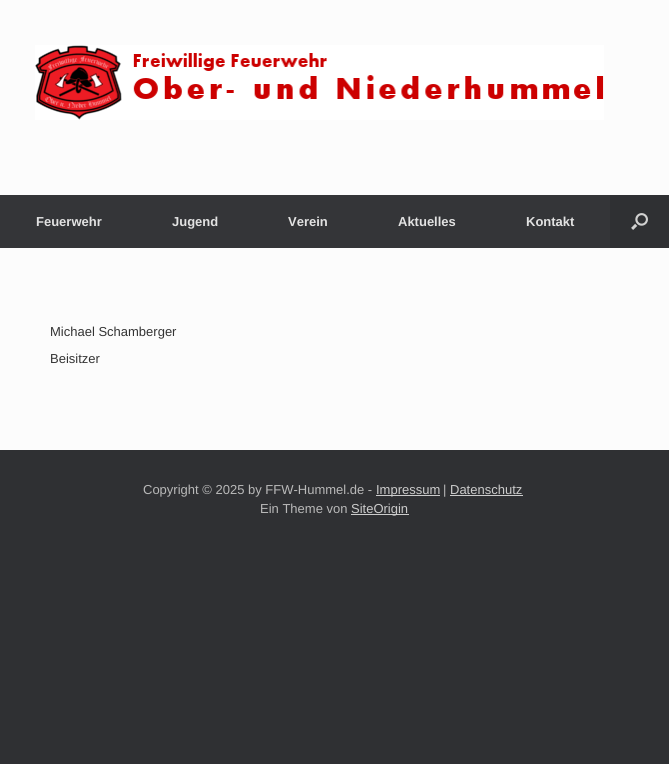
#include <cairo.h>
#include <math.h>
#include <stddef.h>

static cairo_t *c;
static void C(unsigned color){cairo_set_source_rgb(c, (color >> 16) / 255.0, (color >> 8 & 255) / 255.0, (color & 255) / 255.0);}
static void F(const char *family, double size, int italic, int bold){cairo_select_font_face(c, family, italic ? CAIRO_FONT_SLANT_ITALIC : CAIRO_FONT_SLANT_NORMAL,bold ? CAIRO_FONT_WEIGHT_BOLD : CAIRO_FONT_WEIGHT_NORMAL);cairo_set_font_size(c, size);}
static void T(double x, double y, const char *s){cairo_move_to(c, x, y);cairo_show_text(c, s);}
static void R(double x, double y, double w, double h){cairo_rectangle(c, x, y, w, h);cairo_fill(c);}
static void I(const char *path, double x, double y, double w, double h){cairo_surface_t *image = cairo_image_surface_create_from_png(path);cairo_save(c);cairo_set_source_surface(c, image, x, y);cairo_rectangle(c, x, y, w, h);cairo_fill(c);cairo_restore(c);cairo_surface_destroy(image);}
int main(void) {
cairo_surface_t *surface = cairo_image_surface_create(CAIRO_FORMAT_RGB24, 669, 764);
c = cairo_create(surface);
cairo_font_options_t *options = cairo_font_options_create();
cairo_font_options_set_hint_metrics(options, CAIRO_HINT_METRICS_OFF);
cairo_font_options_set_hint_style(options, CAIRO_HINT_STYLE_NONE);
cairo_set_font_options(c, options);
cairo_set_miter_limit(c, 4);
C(0x2f3033);
cairo_paint(c);
C(0xfcfcfc);
R(0,0,669,195);
I("1.png",35,45,569,75);
C(0x343538);
R(0,195,610,53);
F("Liberation Sans",13,0,1);
C(0xe2e2e2);
T(36,226,"Feuerwehr");
T(172,226,"Jugend");
T(288,226,"Verein");
T(398,226,"Aktuelles");
T(526,226,"Kontakt");
I("2.png",631,213,17,17);
C(0xfcfcfc);
R(0,248,669,202);
F("Liberation Sans",13,0,0);
C(0x333333);
T(50,336,"Michael Schamberger");
T(50,363,"Beisitzer");
C(0xb9b9b9);
T(143,494,"Copyright © 2025 by FFW-Hummel.de -");
C(0xcccccc);
R(376,495,64,1);
T(376,494,"Impressum");
C(0xb9b9b9);
T(443,494,"|");
C(0xcccccc);
T(450,494,"Datenschutz");
R(450,495,73,1);
C(0xb9b9b9);
T(260,513,"Ein Theme von");
C(0xcccccc);
R(351,514,58,1);
T(351,513,"SiteOrigin");
cairo_surface_write_to_png(surface, "o.png");
cairo_font_options_destroy(options);
cairo_destroy(c);
cairo_surface_destroy(surface);
return 0;
}
